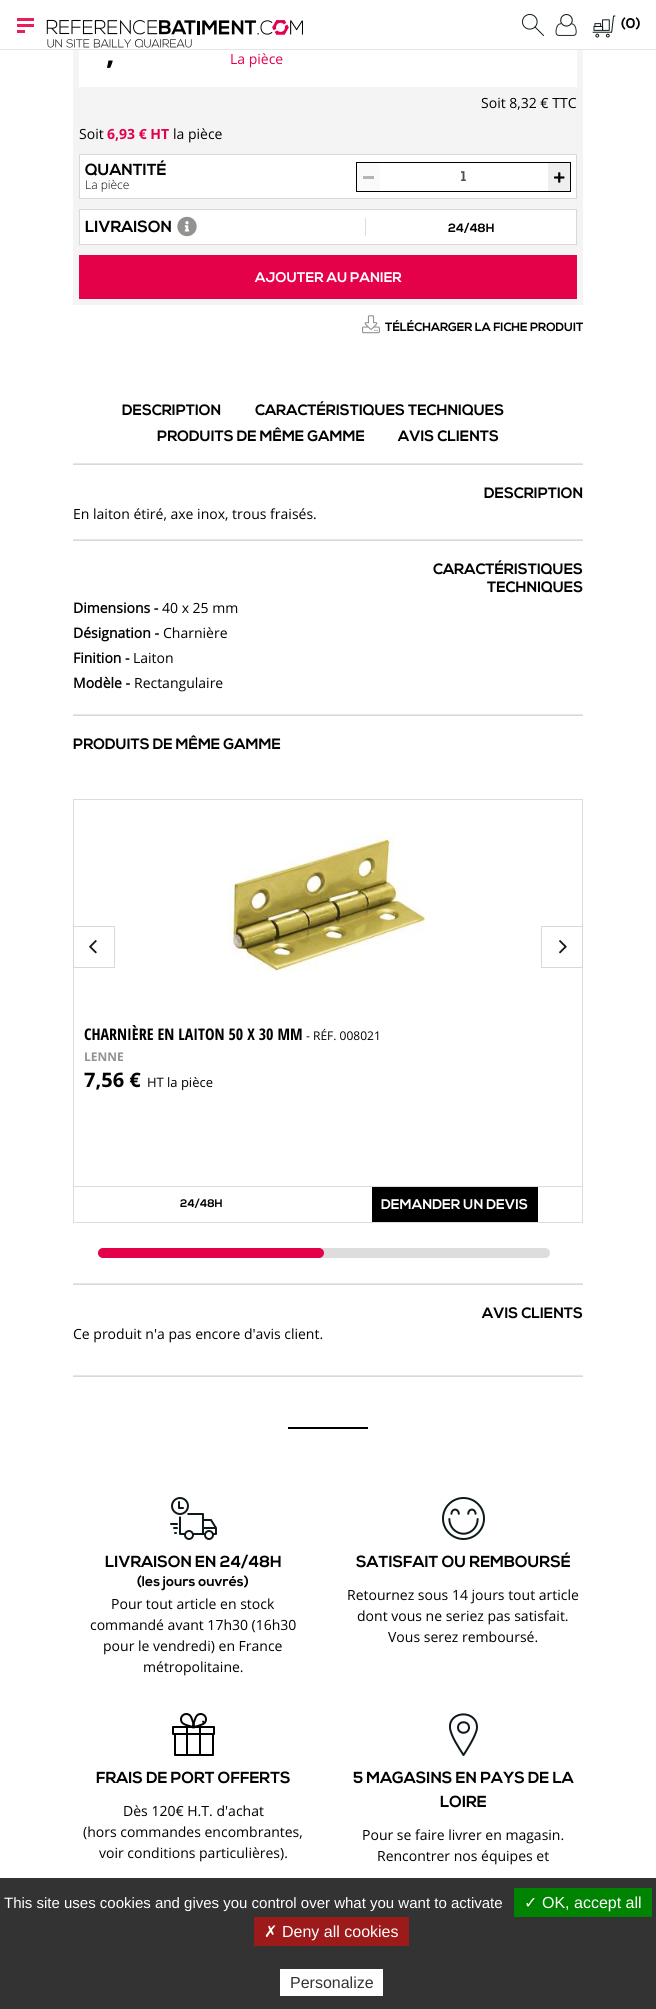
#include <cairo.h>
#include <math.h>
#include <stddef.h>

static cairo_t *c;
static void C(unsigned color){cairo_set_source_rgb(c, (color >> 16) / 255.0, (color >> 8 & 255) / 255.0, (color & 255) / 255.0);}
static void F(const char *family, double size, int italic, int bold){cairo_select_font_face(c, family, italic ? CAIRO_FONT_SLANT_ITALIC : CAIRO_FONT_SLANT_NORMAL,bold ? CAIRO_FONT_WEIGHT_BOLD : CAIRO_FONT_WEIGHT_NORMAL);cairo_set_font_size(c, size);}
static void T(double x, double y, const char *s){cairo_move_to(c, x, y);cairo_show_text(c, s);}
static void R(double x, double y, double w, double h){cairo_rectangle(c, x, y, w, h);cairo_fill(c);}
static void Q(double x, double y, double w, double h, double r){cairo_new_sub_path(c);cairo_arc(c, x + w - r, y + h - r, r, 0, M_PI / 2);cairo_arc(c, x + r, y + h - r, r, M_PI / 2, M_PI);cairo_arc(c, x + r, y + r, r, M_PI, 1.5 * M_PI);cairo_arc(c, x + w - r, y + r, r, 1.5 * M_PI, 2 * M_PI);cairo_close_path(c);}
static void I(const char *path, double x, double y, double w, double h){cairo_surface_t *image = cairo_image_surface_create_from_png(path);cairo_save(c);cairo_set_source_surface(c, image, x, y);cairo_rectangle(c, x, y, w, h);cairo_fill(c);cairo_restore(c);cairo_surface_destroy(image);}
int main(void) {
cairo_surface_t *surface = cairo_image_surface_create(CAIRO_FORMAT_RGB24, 656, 2009);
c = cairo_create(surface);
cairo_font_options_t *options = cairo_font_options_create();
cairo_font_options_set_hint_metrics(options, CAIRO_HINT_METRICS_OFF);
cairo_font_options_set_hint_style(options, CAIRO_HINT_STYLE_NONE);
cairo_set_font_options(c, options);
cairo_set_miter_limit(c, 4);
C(0xffffff);
cairo_paint(c);
C(0xe5e5e5);
R(0,49,656,1);
C(0xeb1d58);
R(17,18,17,3);
R(17,24,17,3);
R(17,30,8,3);
I("1.png",46,19,257,29);
I("2.png",522,14,22,22);
I("3.png",555,14,22,22);
I("4.png",592,15,24,23);
F("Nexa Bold",14,0,1);
C(0x000000);
T(621,28,"(0)");
C(0xf4f4f4);
R(73,50,510,255);
C(0xffffff);
R(79,50,498,37);
F("Open Sans",30,0,1);
C(0x000000);
T(106,64,",");
F("Open Sans",14,0,0);
C(0xe5004a);
T(230,64,"La pièce");
C(0x000000);
T(481,108,"Soit 8,32 € TTC");
T(79,139,"Soit");
F("Open Sans",14,0,1);
C(0xe5004a);
T(107,139,"6,93 € HT");
F("Open Sans",14,0,0);
C(0x000000);
T(173,139,"la pièce");
C(0xffffff);
cairo_rectangle(c,79.5,154.5,497,44);
cairo_fill_preserve(c);
C(0xd8d8d8);
cairo_set_line_width(c,1);
cairo_stroke(c);
F("Nexa Bold",16,0,1);
C(0x000000);
T(85,175,"QUANTITÉ");
F("Open Sans Light",12,0,0);
T(85,189,"La pièce");
cairo_rectangle(c,356.5,162.5,214,29);
cairo_stroke(c);
C(0xfafafa);
R(357,163,23,28);
C(0xb4b4b4);
R(363,176,11,3);
F("Nexa Bold",14,0,1);
C(0x495057);
T(461,181,"1");
C(0xefefef);
R(548,163,22,28);
I("5.png",554,172,11,11);
C(0xffffff);
cairo_rectangle(c,79.5,209.5,497,35);
cairo_fill_preserve(c);
C(0xd8d8d8);
cairo_stroke(c);
F("Nexa Bold",16,0,1);
C(0x000000);
T(85,232,"LIVRAISON");
I("6.png",177,216,20,21);
C(0xdcdcdc);
R(365,218,1,18);
F("Nexa Bold",12,0,1);
C(0x000000);
T(448,232,"24/48H");
C(0xe5004a);
R(79,255,498,44);
F("Nexa Bold",14,0,1);
C(0xffffff);
T(255,282,"AJOUTER AU PANIER");
I("7.png",362,315,18,19);
F("Nexa Bold",12,0,1);
C(0x000000);
T(385,331,"TÉLÉCHARGER LA FICHE PRODUIT");
F("Nexa Bold",15,0,1);
T(122,415,"DESCRIPTION");
T(255,415,"CARACTÉRISTIQUES TECHNIQUES");
T(157,441,"PRODUITS DE MÊME GAMME");
T(398,441,"AVIS CLIENTS");
C(0xe6e6e6);
R(73,463,510,1);
C(0xd8d8d8);
R(73,464,510,1);
C(0x000000);
T(484,498,"DESCRIPTION");
F("Open Sans",14,0,0);
T(73,519,"En laiton étiré, axe inox, trous fraisés.");
C(0xe6e6e6);
R(73,539,510,1);
C(0xd8d8d8);
R(73,540,510,1);
F("Nexa Bold",15,0,1);
C(0x000000);
T(433,574,"CARACTÉRISTIQUES");
T(487,592,"TECHNIQUES");
F("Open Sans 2",14,0,1);
T(73,613,"Dimensions -");
F("Open Sans",14,0,0);
T(162,613,"40 x 25 mm");
F("Open Sans 2",14,0,1);
T(73,638,"Désignation -");
F("Open Sans",14,0,0);
T(163,638,"Charnière");
F("Open Sans 2",14,0,1);
T(73,663,"Finition -");
F("Open Sans",14,0,0);
T(133,663,"Laiton");
F("Open Sans 2",14,0,1);
T(73,688,"Modèle -");
F("Open Sans",14,0,0);
T(134,688,"Rectangulaire");
C(0xe6e6e6);
R(73,714,510,1);
C(0xd8d8d8);
R(73,715,510,1);
F("Nexa Bold",15,0,1);
C(0x000000);
T(73,749,"PRODUITS DE MÊME GAMME");
cairo_rectangle(c,73.5,799.5,509,423);
C(0xdcdcdc);
cairo_stroke(c);
I("8.png",74,927,40,40);
cairo_rectangle(c,73.5,926.5,41,41);
C(0xd8d8d8);
cairo_stroke(c);
I("9.png",542,927,40,40);
cairo_rectangle(c,541.5,926.5,41,41);
cairo_stroke(c);
I("10.png",228,830,200,142);
F("Open Sans Condensed",16,0,1);
C(0x000000);
T(84,1040,"CHARNIÈRE EN LAITON 50 X 30 MM");
F("Open Sans",12,0,0);
T(306,1040,"- RÉF. 008021");
F("Open Sans",12,0,1);
C(0x929291);
T(84,1061,"LENNE");
F("Open Sans",20,0,1);
C(0x000000);
T(84,1087,"7,56 €");
F("Open Sans",13,0,0);
T(147,1087,"HT");
T(167,1087,"la pièce");
C(0xdcdcdc);
R(74,1186,508,1);
F("Nexa Bold",11,0,1);
C(0x000000);
T(180,1207,"24/48H");
R(372,1187,166,35);
F("Nexa Bold",14,0,1);
C(0xffffff);
T(381,1209,"DEMANDER UN DEVIS");
C(0xdddddd);
Q(98,1248,452,10,5);
cairo_fill(c);
C(0xe5004a);
Q(98,1248,226,10,5);
cairo_fill(c);
C(0xe6e6e6);
R(73,1283,510,1);
C(0xd8d8d8);
R(73,1284,510,1);
F("Nexa Bold",15,0,1);
C(0x000000);
T(482,1318,"AVIS CLIENTS");
F("Open Sans",14,0,0);
T(73,1339,"Ce produit n'a pas encore d'avis client.");
C(0xe6e6e6);
R(73,1375,510,1);
C(0xd8d8d8);
R(73,1376,510,1);
C(0x000000);
R(288,1427,80,2);
I("11.png",170,1497,47,43);
F("Nexa Bold",16,0,1);
T(105,1567,"LIVRAISON EN 24/48H");
F("Nexa Bold",14,0,1);
T(137,1586,"(les jours ouvrés)");
F("Open Sans",14,0,0);
T(111,1609,"Pour tout article en stock");
T(90,1630,"commandé avant 17h30 (16h30");
T(103,1651,"pour le vendredi) en France");
T(143,1672,"métropolitaine.");
I("12.png",442,1497,43,43);
F("Nexa Bold",16,0,1);
T(356,1567,"SATISFAIT OU REMBOURSÉ");
F("Open Sans",14,0,0);
T(347,1600,"Retournez sous 14 jours tout article");
T(357,1621,"dont vous ne seriez pas satisfait.");
T(388,1642,"Vous serez remboursé.");
I("13.png",172,1713,43,43);
F("Nexa Bold",16,0,1);
T(96,1783,"FRAIS DE PORT OFFERTS");
F("Open Sans",14,0,0);
T(123,1816,"Dès 120€ H.T. d'achat");
T(83,1837,"(hors commandes encombrantes,");
T(99,1858,"voir conditions particulières).");
cairo_new_path(c);
cairo_move_to(c,477,1727.5);
cairo_curve_to(c,477,1735,463.5,1755,463.5,1755);
cairo_curve_to(c,459,1748,450.5,1735.5,450,1727.5);
cairo_curve_to(c,449,1710.5,477,1709.5,477,1727.5);
cairo_close_path(c);
cairo_move_to(c,469,1727.5);
cairo_curve_to(c,469,1734.5,458,1734.5,458,1727.5);
cairo_curve_to(c,458,1720.5,469,1720.5,469,1727.5);
cairo_close_path(c);
C(0x0e191c);
cairo_set_line_width(c,2);
cairo_set_line_cap(c,CAIRO_LINE_CAP_ROUND);
cairo_set_line_join(c,CAIRO_LINE_JOIN_ROUND);
cairo_stroke(c);
F("Nexa Bold",16,0,1);
C(0x000000);
T(353,1783,"5 MAGASINS EN PAYS DE LA");
T(440,1807,"LOIRE");
F("Open Sans",14,0,0);
T(362,1840,"Pour se faire livrer en magasin.");
T(377,1861,"Rencontrer nos équipes et");
C(0x333333);
R(0,1878,656,131);
F("Liberation Sans",15,0,0);
C(0xffffff);
T(4,1908,"This site uses cookies and gives you control over what you want to activate");
C(0x008300);
R(514,1888,138,29);
F("DejaVu Sans",16,0,0);
C(0xffffff);
T(524,1908,"✓");
F("Liberation Sans",16,0,0);
T(542,1908,"OK, accept all");
C(0x9c1a1a);
R(254,1917,155,29);
F("DejaVu Sans",16,0,0);
C(0xffffff);
T(264,1937,"✗");
F("Liberation Sans",16,0,0);
T(282,1937,"Deny all cookies");
R(280,1969,103,27);
C(0x333333);
T(290,1988,"Personalize");
cairo_surface_write_to_png(surface, "o.png");
cairo_font_options_destroy(options);
cairo_destroy(c);
cairo_surface_destroy(surface);
return 0;
}
